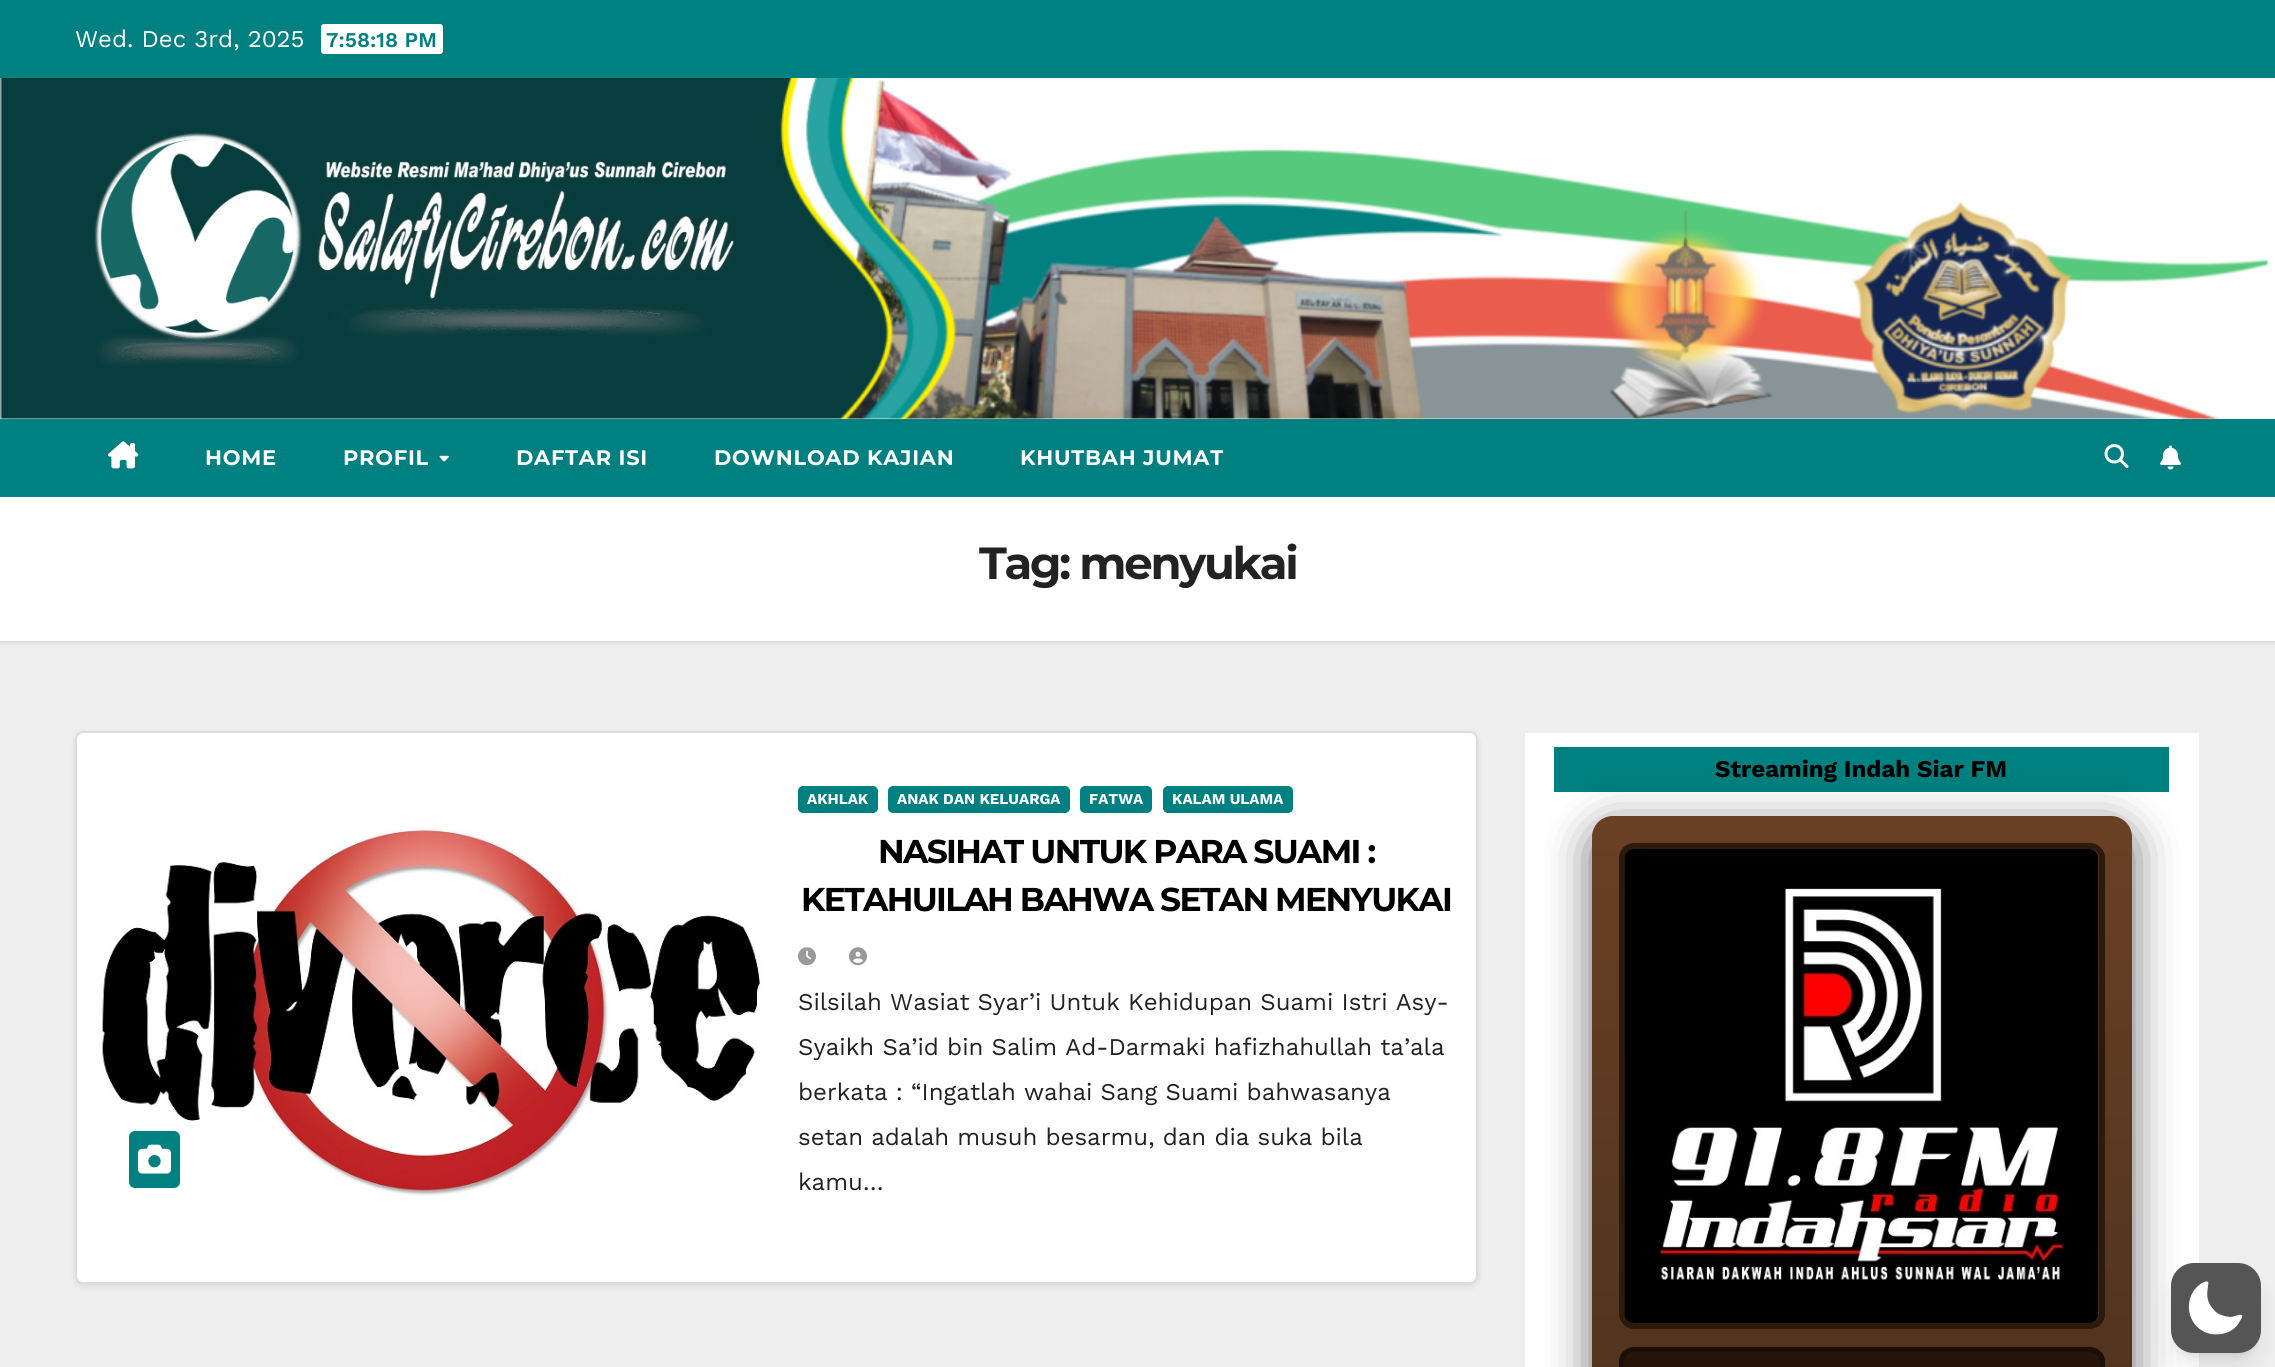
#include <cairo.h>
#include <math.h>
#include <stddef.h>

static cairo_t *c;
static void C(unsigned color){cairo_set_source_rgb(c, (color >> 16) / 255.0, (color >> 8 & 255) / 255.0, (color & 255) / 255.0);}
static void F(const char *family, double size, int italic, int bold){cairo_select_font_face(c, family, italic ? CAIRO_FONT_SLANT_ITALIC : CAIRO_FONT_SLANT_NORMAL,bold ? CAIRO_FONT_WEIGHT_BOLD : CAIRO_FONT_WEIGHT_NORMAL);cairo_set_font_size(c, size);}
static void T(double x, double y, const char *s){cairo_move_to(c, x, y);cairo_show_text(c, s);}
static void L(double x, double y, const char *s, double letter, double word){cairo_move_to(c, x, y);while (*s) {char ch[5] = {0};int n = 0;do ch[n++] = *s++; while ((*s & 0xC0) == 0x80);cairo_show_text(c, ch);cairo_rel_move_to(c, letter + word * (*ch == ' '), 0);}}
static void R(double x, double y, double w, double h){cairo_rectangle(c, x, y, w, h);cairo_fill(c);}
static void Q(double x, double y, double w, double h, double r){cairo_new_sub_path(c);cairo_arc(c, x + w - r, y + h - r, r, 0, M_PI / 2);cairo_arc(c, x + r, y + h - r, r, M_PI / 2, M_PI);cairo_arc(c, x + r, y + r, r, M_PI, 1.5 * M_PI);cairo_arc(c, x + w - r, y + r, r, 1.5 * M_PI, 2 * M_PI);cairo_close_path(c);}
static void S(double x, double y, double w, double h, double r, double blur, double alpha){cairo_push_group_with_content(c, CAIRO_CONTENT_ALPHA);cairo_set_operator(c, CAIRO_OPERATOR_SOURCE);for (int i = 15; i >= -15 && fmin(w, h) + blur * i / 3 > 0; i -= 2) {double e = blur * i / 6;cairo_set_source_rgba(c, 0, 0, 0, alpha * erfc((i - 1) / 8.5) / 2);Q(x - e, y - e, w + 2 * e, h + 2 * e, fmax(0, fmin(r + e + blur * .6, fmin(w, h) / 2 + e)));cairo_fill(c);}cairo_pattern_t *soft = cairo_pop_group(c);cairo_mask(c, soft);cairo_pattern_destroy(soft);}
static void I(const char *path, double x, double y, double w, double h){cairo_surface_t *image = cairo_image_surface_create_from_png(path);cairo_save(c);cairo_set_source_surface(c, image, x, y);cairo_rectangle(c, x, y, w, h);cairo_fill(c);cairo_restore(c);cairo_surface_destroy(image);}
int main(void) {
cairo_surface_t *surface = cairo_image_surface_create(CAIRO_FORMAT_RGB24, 2275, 1367);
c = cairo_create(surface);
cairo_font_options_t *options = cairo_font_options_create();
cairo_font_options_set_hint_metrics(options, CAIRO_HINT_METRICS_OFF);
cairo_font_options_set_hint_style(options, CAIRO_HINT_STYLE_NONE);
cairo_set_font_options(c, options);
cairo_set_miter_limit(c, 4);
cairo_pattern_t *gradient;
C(0xeeeeee);
cairo_paint(c);
C(0x008080);
R(0,0,2275,78);
F("Work Sans",24,0,0);
C(0xffffff);
T(75,47,"Wed. Dec 3rd, 2025");
Q(321,24,122,30,3);
cairo_fill(c);
F("Work Sans SemiBold",21,0,0);
C(0x008080);
T(326,47,"7:58:18 PM");
I("1.png",0,78,2275,341);
I("2.png",94,132,640,234);
C(0x000000);
S(0,498,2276,144,0,2,.15);
C(0x008080);
R(0,419,2275,78);
I("3.png",108,441,31,28);
F("Montserrat",21,0,1);
C(0xffffff);
L(205,465,"HOME",.75,0);
L(343,465,"PROFIL",.75,0);
I("4.png",439,455,10,7);
L(516,465,"DAFTAR ISI",.75,0);
L(714,465,"DOWNLOAD KAJIAN",.75,0);
L(1020,465,"KHUTBAH JUMAT",.75,0);
I("5.png",2104,444,25,24);
I("6.png",2160,445,21,25);
R(0,497,2275,144);
F("Montserrat",45,0,1);
C(0x222222);
L(979,579,"Tag: menyukai",-2.25,0);
C(0xffffff);
R(1525,733,674,634);
C(0x008080);
R(1554,747,615,45);
C(0x000000);
S(1592,828,540,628,21,22.5,.6);
gradient = cairo_pattern_create_linear(1862,816,1862,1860);
cairo_pattern_add_color_stop_rgba(gradient,0,0.416,0.251,0.145,1);
cairo_pattern_add_color_stop_rgba(gradient,1,0.231,0.165,0.094,1);
cairo_set_source(c,gradient);
cairo_pattern_destroy(gradient);
Q(1592,816,540,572,21);
cairo_fill(c);
Q(1622,846,480,480,12);
C(0x2d1a0f);
cairo_set_line_width(c,6);
cairo_stroke(c);
I("7.png",1624,849,475,474);
cairo_save(c);
Q(1619,1347,486,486,15);
cairo_clip(c);
gradient = cairo_pattern_create_linear(1862,1352,1862,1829);
cairo_pattern_add_color_stop_rgba(gradient,0,0.141,0.078,0.039,1);
cairo_pattern_add_color_stop_rgba(gradient,1,0.227,0.133,0.075,1);
cairo_set_source(c,gradient);
cairo_pattern_destroy(gradient);
R(1619,1352,486,15);
cairo_restore(c);
Q(1621.5,1349.5,481,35,12.5);
C(0x1b0f07);
cairo_set_line_width(c,5);
cairo_stroke(c);
F("Work Sans",24,0,1);
C(0x000000);
T(1715,777,"Streaming Indah Siar FM");
C(0x000000);
S(75,734,1403,553,8,3,.08);
C(0xffffff);
Q(76,732,1401,551,7);
cairo_fill_preserve(c);
C(0xdddcdc);
cairo_set_line_width(c,2);
cairo_stroke(c);
I("8.png",99,783,669,450);
C(0x008080);
Q(129,1131,51,57,6);
cairo_fill(c);
I("9.png",138,1144,33,30);
Q(798,786,80,27,5);
cairo_fill(c);
F("Work Sans",15,0,1);
C(0xffffff);
T(807,804,"AKHLAK");
C(0x008080);
Q(888,786,182,27,5);
cairo_fill(c);
C(0xffffff);
T(897,804,"ANAK DAN KELUARGA");
C(0x008080);
Q(1080,786,72,27,5);
cairo_fill(c);
C(0xffffff);
T(1089,804,"FATWA");
C(0x008080);
Q(1163,786,130,27,5);
cairo_fill(c);
C(0xffffff);
T(1172,804,"KALAM ULAMA");
F("Montserrat",33,0,1);
C(0x000000);
L(878,863,"NASIHAT UNTUK PARA SUAMI :",-1.65,0);
L(801,911,"KETAHUILAH BAHWA SETAN MENYUKAI",-1.65,0);
I("10.png",798,947,18,19);
I("11.png",849,947,18,19);
F("Work Sans",24,0,0);
C(0x222222);
T(798,1010,"Silsilah Wasiat Syar’i Untuk Kehidupan Suami Istri Asy-");
T(798,1055,"Syaikh Sa’id bin Salim Ad-Darmaki hafizhahullah ta’ala");
T(798,1100,"berkata : “Ingatlah wahai Sang Suami bahwasanya");
T(798,1145,"setan adalah musuh besarmu, dan dia suka bila");
T(798,1190,"kamu…");
C(0x000000);
S(2177,1275,78,78,17,4.5,.1);
S(2175,1283,81,81,18,11,.1);
C(0x555555);
Q(2171,1263,90,90,23);
cairo_fill(c);
C(0xfefefe);
cairo_set_fill_rule(c,CAIRO_FILL_RULE_EVEN_ODD);
cairo_new_path(c);
cairo_move_to(c,2208,1282);
cairo_curve_to(c,2210,1284,2202,1298,2214,1310);
cairo_curve_to(c,2218,1315,2224,1316,2230,1317);
cairo_curve_to(c,2235,1317,2247,1310,2240,1321);
cairo_curve_to(c,2238,1325,2235,1328,2232,1330);
cairo_curve_to(c,2226,1334,2218,1335,2211,1334);
cairo_curve_to(c,2186,1329,2181,1296,2202,1283);
cairo_curve_to(c,2203,1283,2206,1280,2208,1282);
cairo_close_path(c);
cairo_fill(c);
cairo_surface_write_to_png(surface, "o.png");
cairo_font_options_destroy(options);
cairo_destroy(c);
cairo_surface_destroy(surface);
return 0;
}
